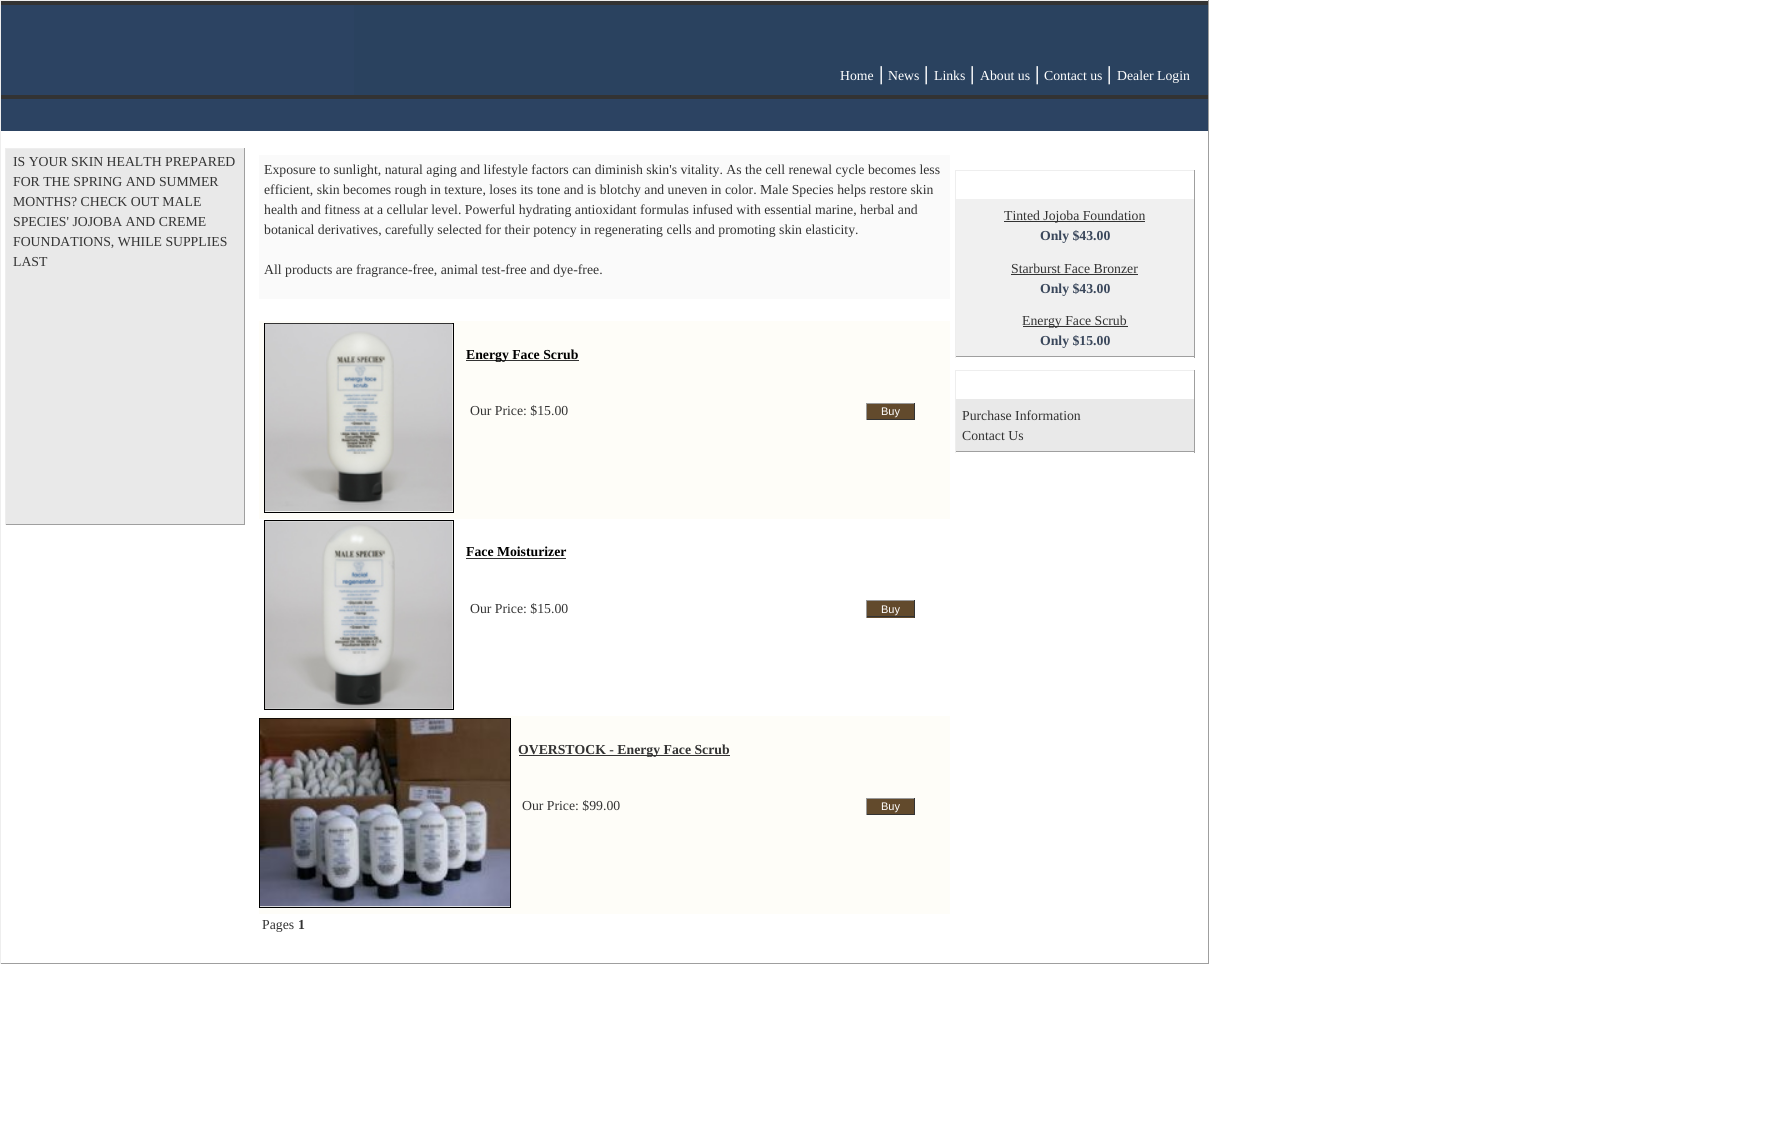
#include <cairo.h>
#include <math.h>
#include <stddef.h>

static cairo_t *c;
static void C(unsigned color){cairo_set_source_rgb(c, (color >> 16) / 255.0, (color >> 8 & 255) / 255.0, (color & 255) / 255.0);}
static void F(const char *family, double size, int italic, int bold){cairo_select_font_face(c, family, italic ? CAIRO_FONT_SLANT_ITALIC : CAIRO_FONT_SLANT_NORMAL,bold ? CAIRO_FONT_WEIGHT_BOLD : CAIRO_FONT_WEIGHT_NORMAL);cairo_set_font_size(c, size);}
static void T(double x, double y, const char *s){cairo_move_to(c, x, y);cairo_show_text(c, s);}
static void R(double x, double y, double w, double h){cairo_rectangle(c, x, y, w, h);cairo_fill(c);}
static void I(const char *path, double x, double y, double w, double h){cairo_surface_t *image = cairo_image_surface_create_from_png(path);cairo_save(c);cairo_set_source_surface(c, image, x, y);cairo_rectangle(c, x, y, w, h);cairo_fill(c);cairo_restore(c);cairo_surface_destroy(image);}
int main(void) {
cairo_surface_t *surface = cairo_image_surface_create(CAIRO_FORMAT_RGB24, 1791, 1148);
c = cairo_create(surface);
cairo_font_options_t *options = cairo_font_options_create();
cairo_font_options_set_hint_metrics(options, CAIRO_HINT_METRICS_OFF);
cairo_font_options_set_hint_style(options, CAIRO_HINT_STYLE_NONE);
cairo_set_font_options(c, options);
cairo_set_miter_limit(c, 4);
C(0xffffff);
cairo_paint(c);
C(0xeeeeee);
R(0,0,1209,1);
C(0x9f9f9f);
R(1208,0,1,964);
R(0,963,1209,1);
C(0xeeeeee);
R(0,0,1,964);
C(0x333333);
R(1,1,1207,4);
C(0x2c4362);
R(1,5,353,90);
C(0x2a425f);
R(354,5,854,90);
F("Liberation Serif",13.75,0,0);
C(0xffffff);
T(840,80,"Home");
F("Liberation Serif",20,0,1);
T(879,80,"|");
F("Liberation Serif",13.75,0,0);
T(888,80,"News");
F("Liberation Serif",20,0,1);
T(924,80,"|");
F("Liberation Serif",13.75,0,0);
T(934,80,"Links");
F("Liberation Serif",20,0,1);
T(970,80,"|");
F("Liberation Serif",13.75,0,0);
T(980,80,"About us");
F("Liberation Serif",20,0,1);
T(1035,80,"|");
F("Liberation Serif",13.75,0,0);
T(1044,80,"Contact us");
F("Liberation Serif",20,0,1);
T(1107,80,"|");
F("Liberation Serif",13.75,0,0);
T(1117,80,"Dealer Login");
C(0x333333);
R(1,95,1207,4);
C(0x2c4362);
R(1,99,1207,32);
C(0xeeeeee);
R(5,148,240,1);
C(0x9f9f9f);
R(244,148,1,377);
R(5,524,240,1);
C(0xeeeeee);
R(5,148,1,377);
C(0xe9e9e9);
R(6,149,238,375);
C(0x333333);
T(13,166,"IS YOUR SKIN HEALTH PREPARED");
T(13,186,"FOR THE SPRING AND SUMMER");
T(13,206,"MONTHS? CHECK OUT MALE");
T(13,226,"SPECIES' JOJOBA AND CREME");
T(13,246,"FOUNDATIONS, WHILE SUPPLIES");
T(13,266,"LAST");
C(0xfafafa);
R(259,155,691,144);
C(0x333333);
T(264,174,"Exposure to sunlight, natural aging and lifestyle factors can diminish skin's vitality. As the cell renewal cycle becomes less");
T(264,194,"efficient, skin becomes rough in texture, loses its tone and is blotchy and uneven in color. Male Species helps restore skin");
T(264,214,"health and fitness at a cellular level. Powerful hydrating antioxidant formulas infused with essential marine, herbal and");
T(264,234,"botanical derivatives, carefully selected for their potency in regenerating cells and promoting skin elasticity.");
T(264,274,"All products are fragrance-free, animal test-free and dye-free.");
C(0xfefdf8);
R(259,321,691,198);
cairo_rectangle(c,264.5,323.5,189,189);
C(0x000000);
cairo_set_line_width(c,1);
cairo_stroke(c);
I("1.png",265,323,188,189);
C(0x333333);
R(466,360,113,1);
F("Liberation Serif",13.75,0,1);
C(0x000000);
T(466,359,"Energy Face Scrub");
F("Liberation Serif",13.75,0,0);
C(0x333333);
T(470,415,"Our Price: $15.00");
C(0x624a2c);
R(867,404,47,15);
C(0x999999);
R(866,403,49,1);
C(0x333333);
R(914,403,1,17);
R(866,419,49,1);
C(0x999999);
R(866,403,1,17);
F("Liberation Sans",11,0,0);
C(0xffffff);
T(881,415,"Buy");
cairo_rectangle(c,264.5,520.5,189,189);
C(0x000000);
cairo_stroke(c);
I("2.png",265,521,188,188);
F("Liberation Serif",13.75,0,1);
T(466,556,"Face Moisturizer");
C(0x333333);
R(466,558,100,1);
F("Liberation Serif",13.75,0,0);
T(470,613,"Our Price: $15.00");
C(0x624a2c);
R(867,601,47,17);
C(0x999999);
R(866,600,49,1);
C(0x333333);
R(914,600,1,18);
R(866,616,49,1);
C(0x999999);
R(866,600,1,18);
F("Liberation Sans",11,0,0);
C(0xffffff);
T(881,613,"Buy");
C(0xfefdf8);
R(259,716,691,198);
cairo_rectangle(c,259.5,718.5,251,189);
C(0x000000);
cairo_stroke(c);
I("3.png",260,718,250,189);
C(0x333333);
R(519,755,211,1);
F("Liberation Serif",13.75,0,1);
T(518,754,"OVERSTOCK - Energy Face Scrub");
F("Liberation Serif",13.75,0,0);
T(522,810,"Our Price: $99.00");
C(0x624a2c);
R(867,799,47,15);
C(0x999999);
R(866,798,49,1);
C(0x333333);
R(914,798,1,17);
R(866,814,49,1);
C(0x999999);
R(866,798,1,17);
F("Liberation Sans",11,0,0);
C(0xffffff);
T(881,810,"Buy");
F("Liberation Serif",13.75,0,0);
C(0x333333);
T(262,929,"Pages");
F("Liberation Serif",13.75,0,1);
T(298,929,"1");
C(0xeeeeee);
R(955,170,240,1);
C(0x9f9f9f);
R(1194,170,1,188);
R(955,356,240,1);
C(0xeeeeee);
R(955,170,1,188);
C(0xf0f0f0);
R(956,199,238,157);
C(0x333333);
R(1004,221,141,1);
F("Liberation Serif",13.75,0,0);
T(1004,220,"Tinted Jojoba Foundation");
F("Liberation Serif",13.75,0,1);
C(0x3a475b);
T(1040,240,"Only $43.00");
F("Liberation Serif",13.75,0,0);
C(0x333333);
T(1011,273,"Starburst Face Bronzer");
R(1011,274,127,1);
F("Liberation Serif",13.75,0,1);
C(0x3a475b);
T(1040,293,"Only $43.00");
C(0x333333);
R(1023,326,105,1);
F("Liberation Serif",13.75,0,0);
T(1022,325,"Energy Face Scrub");
F("Liberation Serif",13.75,0,1);
C(0x3a475b);
T(1040,345,"Only $15.00");
C(0xeeeeee);
R(955,370,240,1);
C(0x9f9f9f);
R(1194,370,1,83);
R(955,451,240,1);
C(0xeeeeee);
R(955,370,1,83);
C(0xe9e9e9);
R(956,399,238,52);
F("Liberation Serif",13.75,0,0);
C(0x333333);
T(962,420,"Purchase Information");
T(962,440,"Contact Us");
cairo_surface_write_to_png(surface, "o.png");
cairo_font_options_destroy(options);
cairo_destroy(c);
cairo_surface_destroy(surface);
return 0;
}
